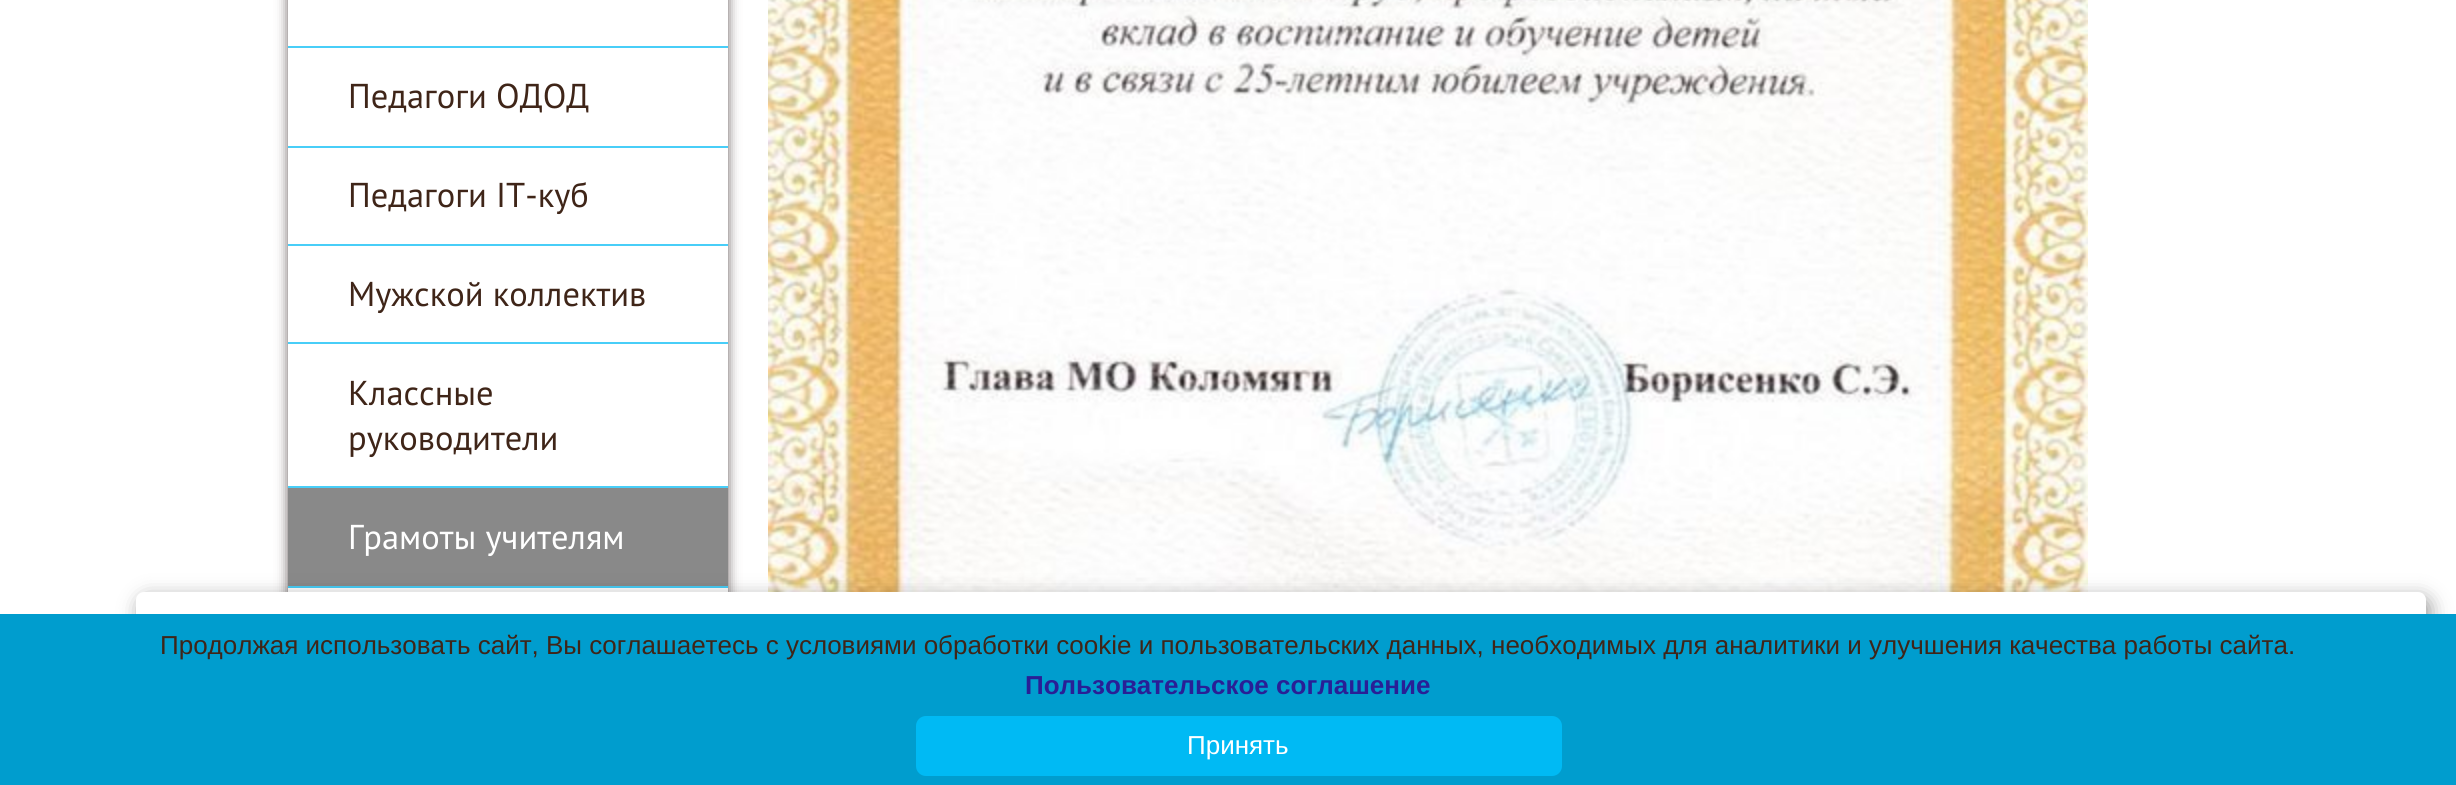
#include <cairo.h>
#include <math.h>
#include <stddef.h>

static cairo_t *c;
static void C(unsigned color){cairo_set_source_rgb(c, (color >> 16) / 255.0, (color >> 8 & 255) / 255.0, (color & 255) / 255.0);}
static void F(const char *family, double size, int italic, int bold){cairo_select_font_face(c, family, italic ? CAIRO_FONT_SLANT_ITALIC : CAIRO_FONT_SLANT_NORMAL,bold ? CAIRO_FONT_WEIGHT_BOLD : CAIRO_FONT_WEIGHT_NORMAL);cairo_set_font_size(c, size);}
static void T(double x, double y, const char *s){cairo_move_to(c, x, y);cairo_show_text(c, s);}
static void R(double x, double y, double w, double h){cairo_rectangle(c, x, y, w, h);cairo_fill(c);}
static void Q(double x, double y, double w, double h, double r){cairo_new_sub_path(c);cairo_arc(c, x + w - r, y + h - r, r, 0, M_PI / 2);cairo_arc(c, x + r, y + h - r, r, M_PI / 2, M_PI);cairo_arc(c, x + r, y + r, r, M_PI, 1.5 * M_PI);cairo_arc(c, x + w - r, y + r, r, 1.5 * M_PI, 2 * M_PI);cairo_close_path(c);}
static void S(double x, double y, double w, double h, double r, double blur, double alpha){cairo_push_group_with_content(c, CAIRO_CONTENT_ALPHA);cairo_set_operator(c, CAIRO_OPERATOR_SOURCE);for (int i = 15; i >= -15 && fmin(w, h) + blur * i / 3 > 0; i -= 2) {double e = blur * i / 6;cairo_set_source_rgba(c, 0, 0, 0, alpha * erfc((i - 1) / 8.5) / 2);Q(x - e, y - e, w + 2 * e, h + 2 * e, fmax(0, fmin(r + e + blur * .6, fmin(w, h) / 2 + e)));cairo_fill(c);}cairo_pattern_t *soft = cairo_pop_group(c);cairo_mask(c, soft);cairo_pattern_destroy(soft);}
static void I(const char *path, double x, double y, double w, double h){cairo_surface_t *image = cairo_image_surface_create_from_png(path);cairo_save(c);cairo_set_source_surface(c, image, x, y);cairo_rectangle(c, x, y, w, h);cairo_fill(c);cairo_restore(c);cairo_surface_destroy(image);}
int main(void) {
cairo_surface_t *surface = cairo_image_surface_create(CAIRO_FORMAT_RGB24, 2456, 785);
c = cairo_create(surface);
cairo_font_options_t *options = cairo_font_options_create();
cairo_font_options_set_hint_metrics(options, CAIRO_HINT_METRICS_OFF);
cairo_font_options_set_hint_style(options, CAIRO_HINT_STYLE_NONE);
cairo_set_font_options(c, options);
cairo_set_miter_limit(c, 4);
C(0xffffff);
cairo_paint(c);
cairo_save(c);
cairo_set_fill_rule(c,CAIRO_FILL_RULE_EVEN_ODD);
cairo_new_path(c);
cairo_move_to(c,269,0);
cairo_line_to(c,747,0);
cairo_line_to(c,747,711);
cairo_line_to(c,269,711);
cairo_close_path(c);
cairo_move_to(c,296,-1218);
cairo_line_to(c,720,-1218);
cairo_curve_to(c,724.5,-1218,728,-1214.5,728,-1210);
cairo_line_to(c,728,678);
cairo_curve_to(c,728,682.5,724.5,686,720,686);
cairo_line_to(c,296,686);
cairo_curve_to(c,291.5,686,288,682.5,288,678);
cairo_line_to(c,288,-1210);
cairo_curve_to(c,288,-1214.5,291.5,-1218,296,-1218);
cairo_close_path(c);
cairo_clip(c);
C(0x483b3b);
S(288,-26,440,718,8,6,.8);
cairo_restore(c);
C(0x48cef8);
R(288,46,440,2);
R(288,146,440,2);
F("PT Sans",34.5,0,0);
C(0x3f2518);
T(348,108,"Педагоги ОДОД");
C(0x48cef8);
R(288,244,440,2);
C(0x3f2518);
T(348,207,"Педагоги IT-куб");
C(0x48cef8);
R(288,342,440,2);
C(0x3f2518);
T(348,306,"Мужской коллектив");
C(0x48cef8);
R(288,486,440,2);
C(0x3f2518);
T(348,405,"Классные");
T(348,450,"руководители");
C(0x898989);
R(288,488,440,98);
C(0x48cef8);
R(288,586,440,2);
C(0xffffff);
T(348,549,"Грамоты учителям");
I("1.png",768,0,1320,592);
C(0x000000);
S(140,598,2290,164,8,10,.4);
C(0xffffff);
Q(136,592,2290,164,8);
cairo_fill(c);
C(0x009dce);
R(0,614,2456,171);
F("Liberation Sans",26,0,0);
C(0x3f2518);
T(160,654,"Продолжая использовать сайт, Вы соглашаетесь с условиями обработки cookie и пользовательских данных, необходимых для аналитики и улучшения качества работы сайта.");
F("Liberation Sans",26,0,1);
C(0x291f96);
T(1025,694,"Пользовательское соглашение");
C(0x00baf4);
Q(916,716,646,60,10);
cairo_fill(c);
F("Liberation Sans",26,0,0);
C(0xffffff);
T(1187,754,"Принять");
cairo_surface_write_to_png(surface, "o.png");
cairo_font_options_destroy(options);
cairo_destroy(c);
cairo_surface_destroy(surface);
return 0;
}
